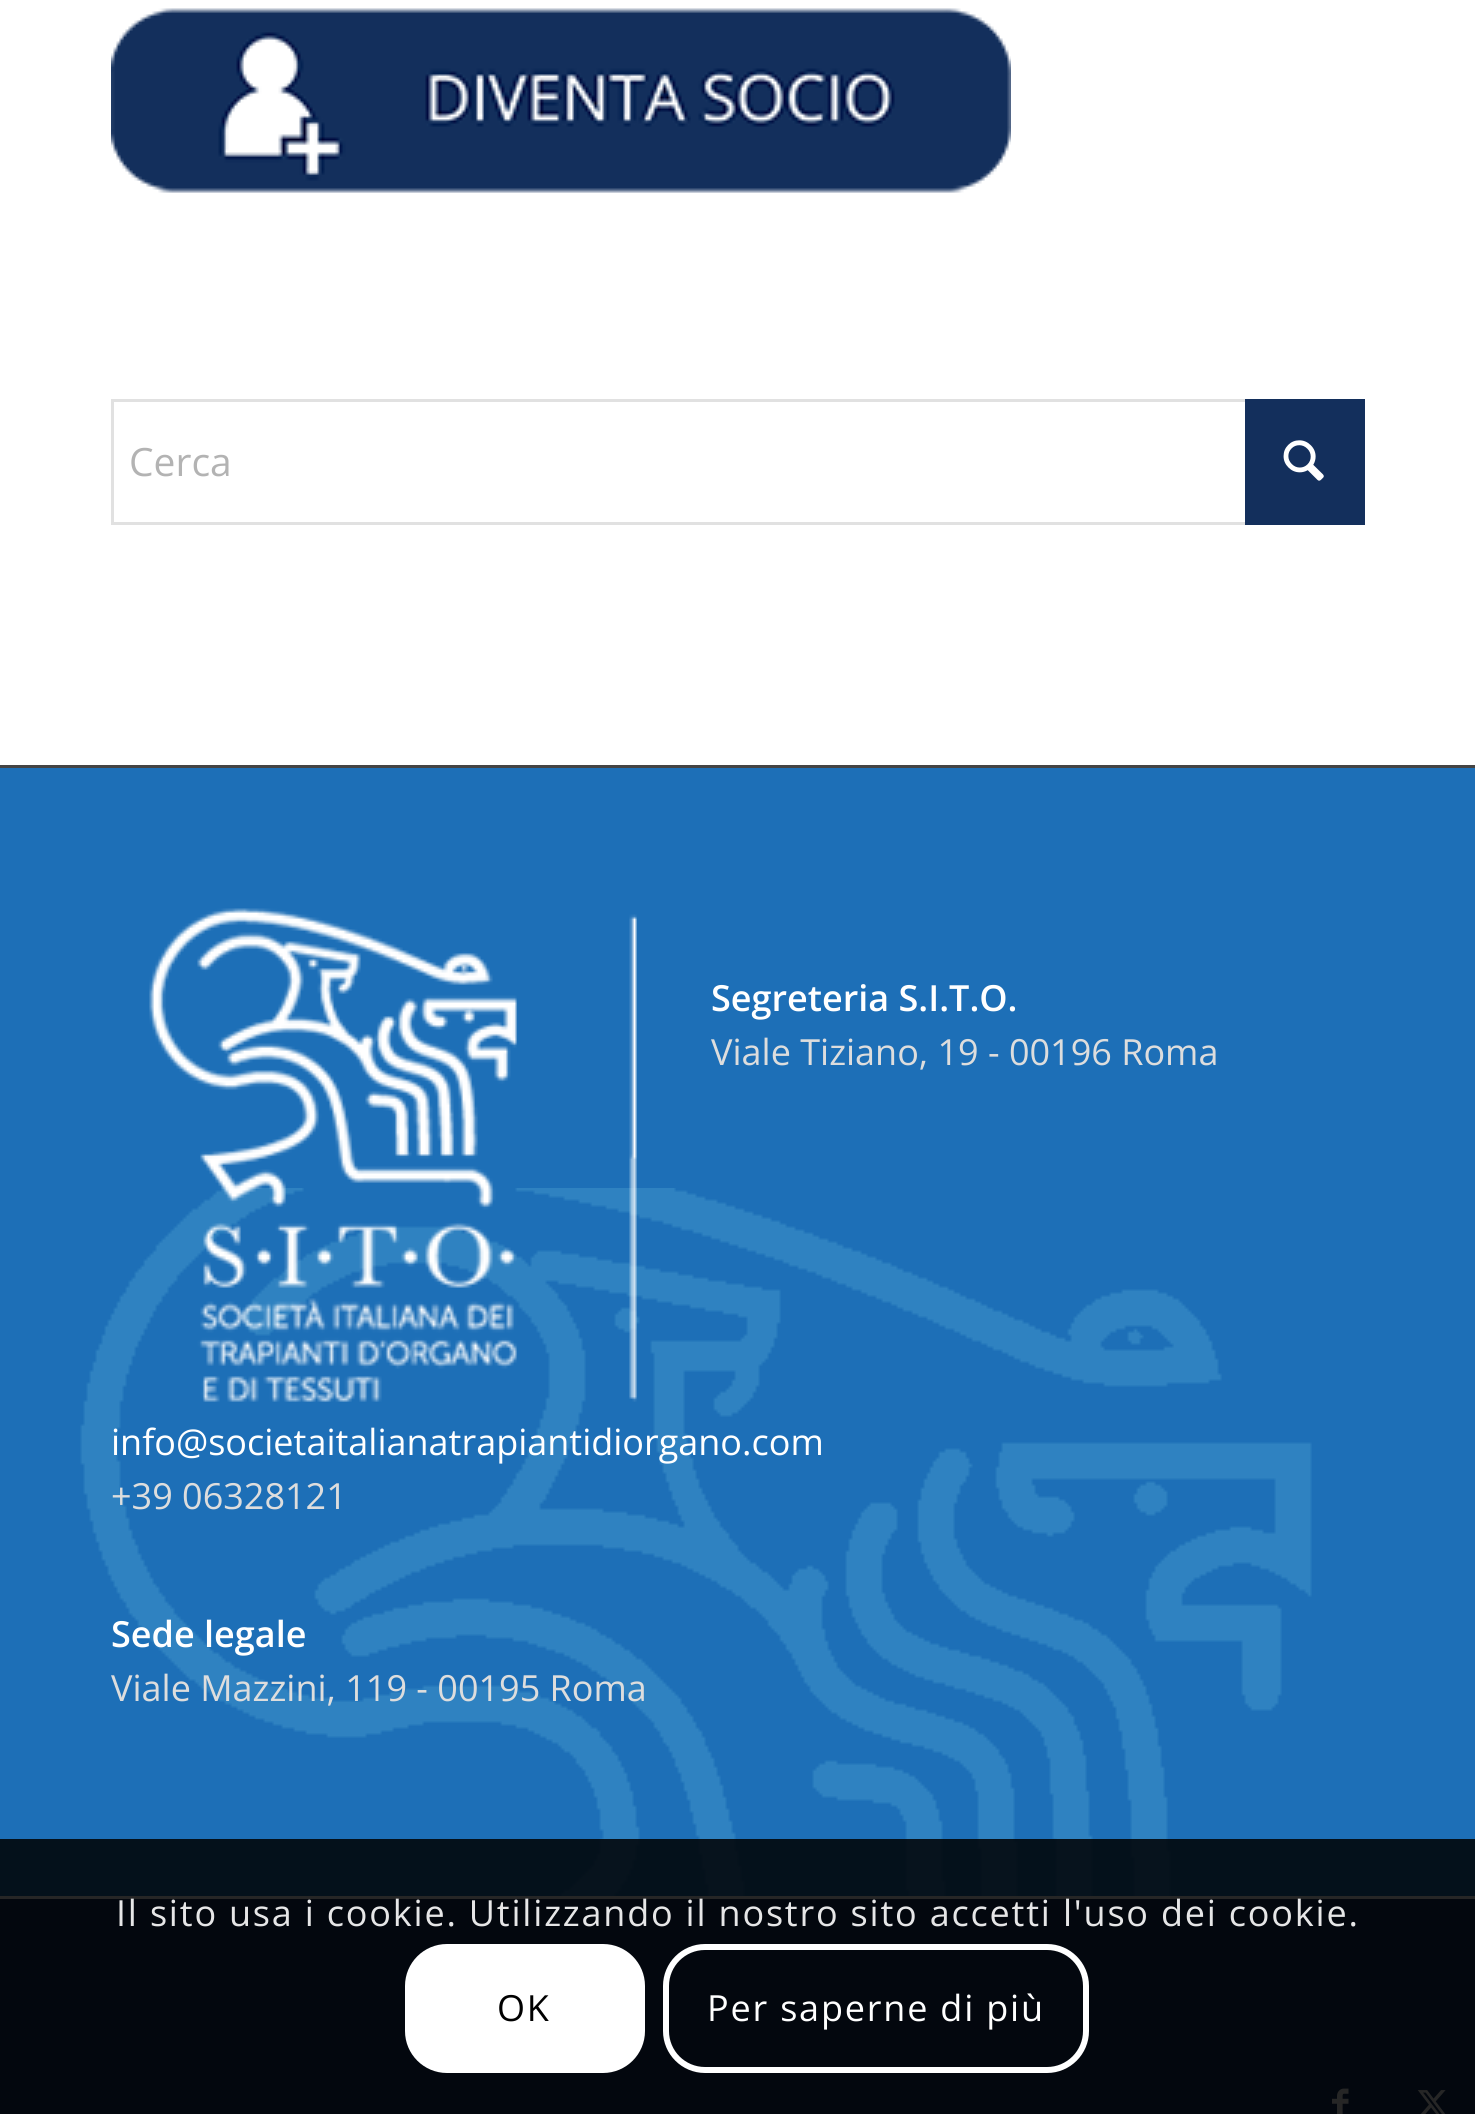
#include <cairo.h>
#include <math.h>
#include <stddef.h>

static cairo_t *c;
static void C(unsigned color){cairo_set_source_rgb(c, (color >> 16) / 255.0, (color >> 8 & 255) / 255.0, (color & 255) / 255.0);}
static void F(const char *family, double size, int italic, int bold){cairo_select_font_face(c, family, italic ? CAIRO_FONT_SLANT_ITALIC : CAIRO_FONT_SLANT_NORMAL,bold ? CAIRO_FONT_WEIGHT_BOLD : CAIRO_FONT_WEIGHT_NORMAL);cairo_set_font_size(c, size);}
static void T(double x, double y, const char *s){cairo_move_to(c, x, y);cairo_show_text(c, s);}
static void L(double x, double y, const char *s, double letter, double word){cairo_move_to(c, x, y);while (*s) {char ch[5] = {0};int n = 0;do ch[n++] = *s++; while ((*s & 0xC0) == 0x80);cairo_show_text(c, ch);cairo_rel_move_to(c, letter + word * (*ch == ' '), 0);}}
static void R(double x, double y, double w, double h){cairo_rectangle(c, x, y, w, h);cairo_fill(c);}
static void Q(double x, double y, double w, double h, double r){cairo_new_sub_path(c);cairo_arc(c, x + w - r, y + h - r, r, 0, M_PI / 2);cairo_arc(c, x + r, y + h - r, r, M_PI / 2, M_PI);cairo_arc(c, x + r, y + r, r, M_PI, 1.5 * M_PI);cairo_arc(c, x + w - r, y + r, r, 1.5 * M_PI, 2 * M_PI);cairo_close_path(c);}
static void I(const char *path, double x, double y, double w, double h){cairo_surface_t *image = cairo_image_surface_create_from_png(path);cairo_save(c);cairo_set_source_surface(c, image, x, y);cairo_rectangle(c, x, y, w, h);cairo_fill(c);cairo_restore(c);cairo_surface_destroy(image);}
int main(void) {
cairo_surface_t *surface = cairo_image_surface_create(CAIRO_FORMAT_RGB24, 1475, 2114);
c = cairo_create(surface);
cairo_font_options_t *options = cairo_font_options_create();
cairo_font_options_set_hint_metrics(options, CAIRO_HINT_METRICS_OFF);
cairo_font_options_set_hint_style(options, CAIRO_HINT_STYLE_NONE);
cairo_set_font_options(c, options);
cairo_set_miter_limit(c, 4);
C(0xffffff);
cairo_paint(c);
I("1.png",111,8,900,185);
cairo_rectangle(c,112.5,400.5,1251,123);
C(0xe1e1e1);
cairo_set_line_width(c,3);
cairo_stroke(c);
C(0x132f5c);
R(1245,399,120,126);
F("Open Sans",39,0,0);
C(0xb3b3b3);
T(129,476,"Cerca");
I("2.png",1283,440,41,41);
C(0x1d6fb7);
R(0,768,1475,1128);
I("3.png",80,1188,1232,708);
C(0x444444);
R(0,765,1475,3);
I("4.png",149,908,488,494);
F("Open Sans SemiBold",36,0,0);
C(0xffffff);
T(711,1011,"Segreteria S.I.T.O.");
F("Open Sans",36,0,0);
C(0xdddddd);
T(711,1065,"Viale Tiziano, 19 - 00196 Roma");
C(0xffffff);
T(111,1455,"info@societaitalianatrapiantidiorgano.com");
C(0xdddddd);
T(111,1509,"+39 06328121");
F("Open Sans SemiBold",36,0,0);
C(0xffffff);
T(111,1647,"Sede legale");
F("Open Sans",36,0,0);
C(0xdddddd);
T(111,1701,"Viale Mazzini, 119 - 00195 Roma");
C(0x132f5c);
R(0,1899,1475,215);
I("5.png",1332,2088,17,26);
I("6.png",1417,2090,29,24);
cairo_set_source_rgba(c,0,0,0,0.85);
R(0,1839,1475,275);
C(0xe6e6e7);
L(116,1926,"Il sito usa i cookie. Utilizzando il nostro sito accetti l'uso dei cookie.",1.8,0);
C(0xffffff);
Q(405,1944,240,129,42);
cairo_fill(c);
C(0x000000);
L(497,2021,"OK",1.8,0);
Q(666,1947,420,123,39);
C(0xffffff);
cairo_set_line_width(c,6);
cairo_stroke(c);
L(707,2021,"Per saperne di più",1.8,0);
cairo_surface_write_to_png(surface, "o.png");
cairo_font_options_destroy(options);
cairo_destroy(c);
cairo_surface_destroy(surface);
return 0;
}
